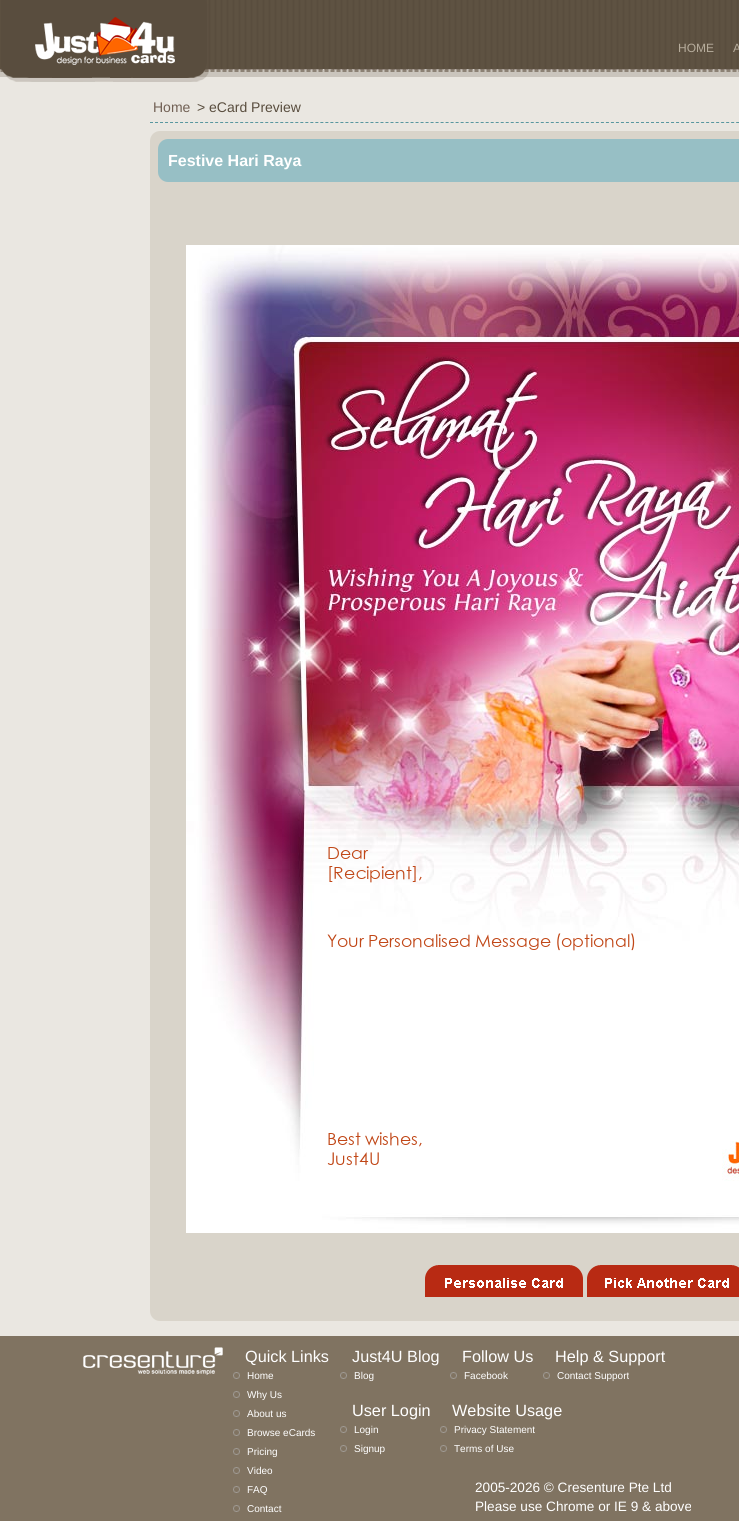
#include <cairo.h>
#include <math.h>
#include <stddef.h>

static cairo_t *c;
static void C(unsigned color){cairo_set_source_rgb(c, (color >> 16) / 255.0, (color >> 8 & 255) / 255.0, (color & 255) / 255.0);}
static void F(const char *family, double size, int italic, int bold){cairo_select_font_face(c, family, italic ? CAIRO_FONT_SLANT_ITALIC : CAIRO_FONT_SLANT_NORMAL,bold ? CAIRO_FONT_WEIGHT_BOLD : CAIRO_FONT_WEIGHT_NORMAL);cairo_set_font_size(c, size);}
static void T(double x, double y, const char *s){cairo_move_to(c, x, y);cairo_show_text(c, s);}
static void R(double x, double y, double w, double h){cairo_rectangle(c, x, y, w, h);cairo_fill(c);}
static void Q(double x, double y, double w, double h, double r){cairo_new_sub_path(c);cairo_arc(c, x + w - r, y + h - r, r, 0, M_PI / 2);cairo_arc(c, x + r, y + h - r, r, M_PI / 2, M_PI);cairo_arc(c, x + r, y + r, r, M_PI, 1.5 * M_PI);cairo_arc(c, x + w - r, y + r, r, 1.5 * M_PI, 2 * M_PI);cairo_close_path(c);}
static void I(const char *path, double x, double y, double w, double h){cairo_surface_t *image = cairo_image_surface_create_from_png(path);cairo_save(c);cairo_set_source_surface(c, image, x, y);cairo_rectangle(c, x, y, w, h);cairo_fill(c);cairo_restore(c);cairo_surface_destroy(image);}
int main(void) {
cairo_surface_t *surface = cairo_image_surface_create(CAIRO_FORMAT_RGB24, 739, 1521);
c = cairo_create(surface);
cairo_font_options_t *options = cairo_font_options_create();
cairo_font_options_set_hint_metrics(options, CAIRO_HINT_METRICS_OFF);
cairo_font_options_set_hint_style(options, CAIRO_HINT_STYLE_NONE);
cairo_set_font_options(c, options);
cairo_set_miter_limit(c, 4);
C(0xffffff);
cairo_paint(c);
I("1.png",0,69,739,1);
C(0xeae7e1);
R(0,70,739,1266);
I("2.png",0,0,739,77);
I("3.png",1,0,209,82);
F("Liberation Sans",12,0,0);
C(0xb6ac9c);
T(678,52,"HOME");
T(733,52,"A");
cairo_new_path(c);
cairo_move_to(c,150,122.5);
cairo_line_to(c,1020,122.5);
C(0x59979f);
cairo_set_line_width(c,1);
cairo_set_dash(c,(double[]){3,2.01},2,0);
cairo_stroke(c);
F("Liberation Sans",14,0,0);
C(0x716054);
T(153,112,"Home");
C(0x594d3e);
T(197,112,"> eCard Preview");
C(0xd9d4ca);
Q(150,131,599,1190,10);
cairo_fill(c);
C(0x97bfc5);
Q(158,139,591,43,10);
cairo_fill(c);
F("Liberation Sans",16,0,1);
C(0xffffff);
T(168,166,"Festive Hari Raya");
I("4.png",186,245,553,988);
I("5.png",425,1265,158,32);
I("6.png",587,1265,152,32);
C(0x807361);
R(0,1336,739,185);
I("7.png",83,1347,140,28);
F("Liberation Sans",16.25,0,0);
C(0xffffff);
T(245,1362,"Quick Links");
I("8.png",233,1372,7,7);
F("Liberation Sans",10,0,0);
T(247,1379,"Home");
I("8.png",233,1391,7,7);
T(247,1398,"Why Us");
I("8.png",233,1410,7,7);
T(247,1417,"About us");
I("8.png",233,1429,7,7);
T(247,1436,"Browse eCards");
I("8.png",233,1448,7,7);
T(247,1455,"Pricing");
I("8.png",233,1467,7,7);
T(247,1474,"Video");
I("8.png",233,1486,7,7);
T(247,1493,"FAQ");
I("8.png",233,1505,7,7);
T(247,1512,"Contact");
F("Liberation Sans",16.25,0,0);
T(352,1362,"Just4U Blog");
I("8.png",340,1372,7,7);
F("Liberation Sans",10,0,0);
T(354,1379,"Blog");
F("Liberation Sans",16.25,0,0);
T(462,1362,"Follow Us");
I("8.png",450,1372,7,7);
F("Liberation Sans",10,0,0);
T(464,1379,"Facebook");
F("Liberation Sans",16.25,0,0);
T(555,1362,"Help & Support");
I("8.png",543,1372,7,7);
F("Liberation Sans",10,0,0);
T(557,1379,"Contact Support");
F("Liberation Sans",16.25,0,0);
T(352,1416,"User Login");
I("8.png",340,1426,7,7);
F("Liberation Sans",10,0,0);
T(354,1433,"Login");
I("8.png",340,1445,7,7);
T(354,1452,"Signup");
F("Liberation Sans",16.25,0,0);
T(452,1416,"Website Usage");
I("8.png",440,1426,7,7);
F("Liberation Sans",10,0,0);
T(454,1433,"Privacy Statement");
I("8.png",440,1445,7,7);
T(454,1452,"Terms of Use");
F("Liberation Sans",13.6,0,0);
T(475,1492,"2005-2026 © Cresenture Pte Ltd");
T(475,1511,"Please use Chrome or IE 9 & above");
cairo_surface_write_to_png(surface, "o.png");
cairo_font_options_destroy(options);
cairo_destroy(c);
cairo_surface_destroy(surface);
return 0;
}
